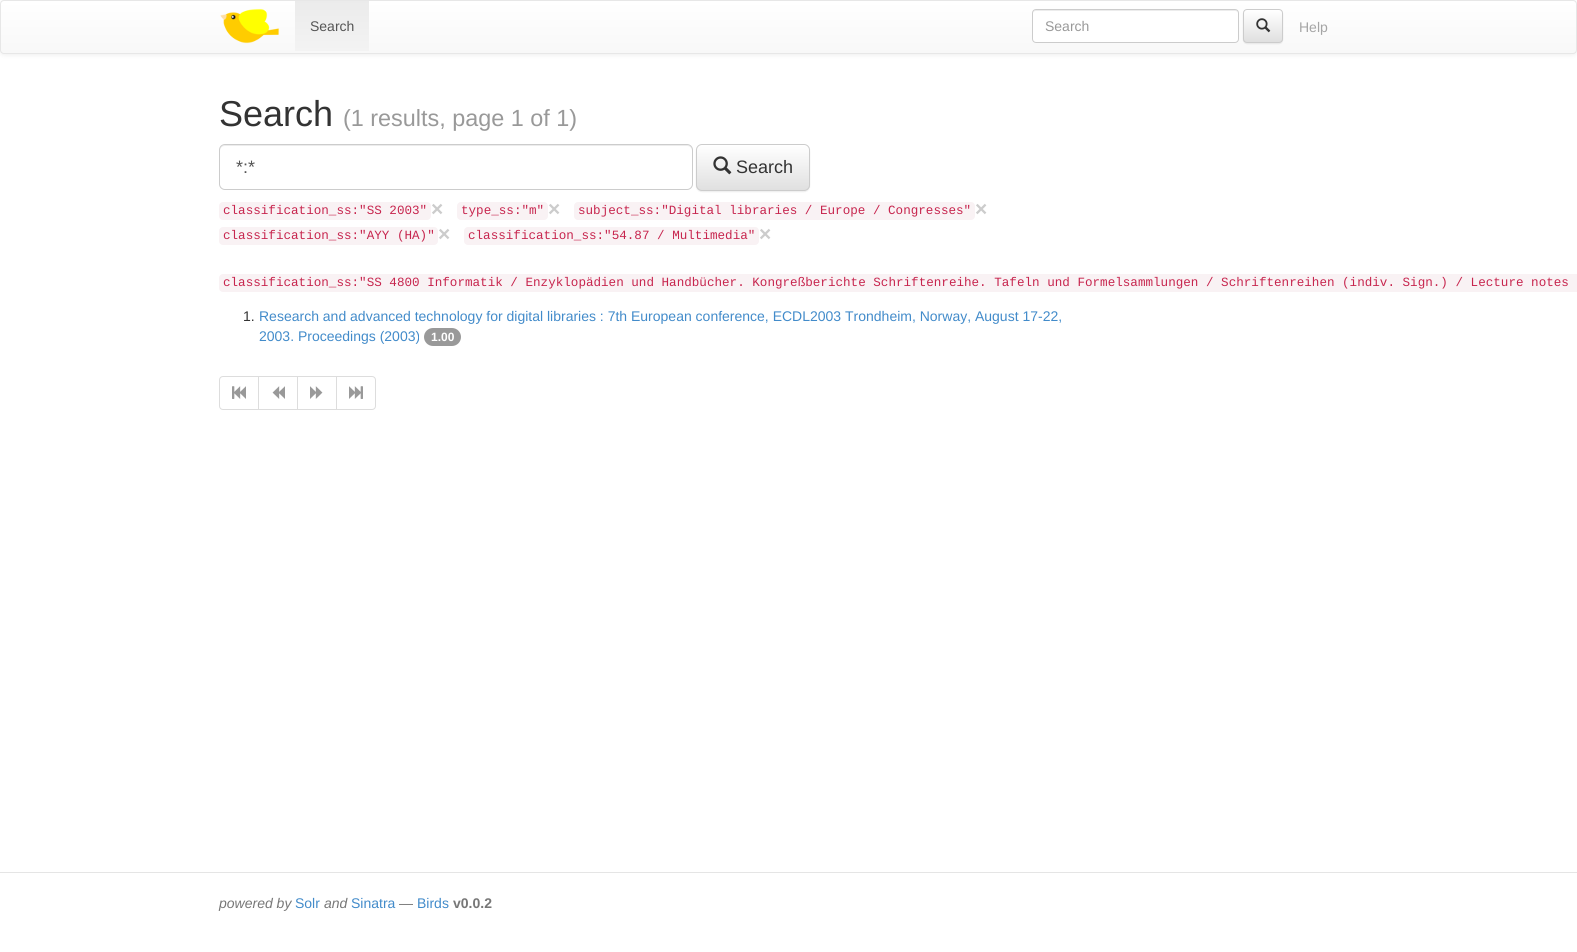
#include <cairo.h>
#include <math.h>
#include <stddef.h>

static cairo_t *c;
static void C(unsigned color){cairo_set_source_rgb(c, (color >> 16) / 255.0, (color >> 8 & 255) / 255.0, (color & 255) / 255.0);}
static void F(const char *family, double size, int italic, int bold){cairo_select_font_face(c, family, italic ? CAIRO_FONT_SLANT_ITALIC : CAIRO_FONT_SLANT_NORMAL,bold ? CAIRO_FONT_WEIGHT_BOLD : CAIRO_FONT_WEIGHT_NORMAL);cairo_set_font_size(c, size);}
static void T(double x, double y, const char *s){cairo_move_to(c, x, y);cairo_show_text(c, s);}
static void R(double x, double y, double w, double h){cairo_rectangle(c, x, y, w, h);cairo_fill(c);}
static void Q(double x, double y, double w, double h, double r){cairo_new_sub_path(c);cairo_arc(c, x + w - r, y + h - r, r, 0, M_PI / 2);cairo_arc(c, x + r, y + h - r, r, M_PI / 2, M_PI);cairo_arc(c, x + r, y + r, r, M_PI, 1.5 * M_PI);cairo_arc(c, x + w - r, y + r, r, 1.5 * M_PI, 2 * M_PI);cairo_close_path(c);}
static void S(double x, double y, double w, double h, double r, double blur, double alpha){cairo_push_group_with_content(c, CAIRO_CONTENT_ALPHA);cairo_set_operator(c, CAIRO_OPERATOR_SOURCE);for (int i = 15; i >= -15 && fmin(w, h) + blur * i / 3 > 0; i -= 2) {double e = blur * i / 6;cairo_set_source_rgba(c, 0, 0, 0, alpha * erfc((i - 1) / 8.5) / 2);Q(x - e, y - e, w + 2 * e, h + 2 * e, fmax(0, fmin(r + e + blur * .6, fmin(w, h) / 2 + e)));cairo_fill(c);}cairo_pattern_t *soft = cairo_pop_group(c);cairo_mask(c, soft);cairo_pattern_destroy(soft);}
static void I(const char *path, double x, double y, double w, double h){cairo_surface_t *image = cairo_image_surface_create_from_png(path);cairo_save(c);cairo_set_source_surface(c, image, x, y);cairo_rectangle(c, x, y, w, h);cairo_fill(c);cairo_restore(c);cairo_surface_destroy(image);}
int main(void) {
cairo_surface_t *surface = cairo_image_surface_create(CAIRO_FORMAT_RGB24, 1577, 952);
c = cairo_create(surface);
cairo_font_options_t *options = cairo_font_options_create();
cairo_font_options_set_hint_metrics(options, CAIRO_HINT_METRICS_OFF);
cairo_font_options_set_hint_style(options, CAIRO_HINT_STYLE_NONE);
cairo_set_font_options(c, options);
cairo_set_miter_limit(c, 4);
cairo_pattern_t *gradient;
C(0xffffff);
cairo_paint(c);
C(0x000000);
S(0,1,1577,54,4,2.5,.07);
cairo_save(c);
Q(0,0,1577,54,4);
cairo_clip(c);
gradient = cairo_pattern_create_linear(789,1,789,53);
cairo_pattern_add_color_stop_rgba(gradient,0,1,1,1,1);
cairo_pattern_add_color_stop_rgba(gradient,1,0.973,0.973,0.973,1);
cairo_set_source(c,gradient);
cairo_pattern_destroy(gradient);
R(0,1,1577,52);
cairo_restore(c);
Q(.5,.5,1576,53,3.5);
C(0xe7e7e7);
cairo_set_line_width(c,1);
cairo_stroke(c);
I("1.png",220,8,60,36);
gradient = cairo_pattern_create_linear(332,1,332,51);
cairo_pattern_add_color_stop_rgba(gradient,0,0.922,0.922,0.922,1);
cairo_pattern_add_color_stop_rgba(gradient,1,0.953,0.953,0.953,1);
cairo_set_source(c,gradient);
cairo_pattern_destroy(gradient);
R(295,1,74,50);
F("Liberation Sans",14,0,0);
C(0x555555);
T(310,31,"Search");
C(0xffffff);
Q(1032,9,207,34,4);
cairo_fill(c);
C(0xececec);
cairo_new_path(c);
cairo_move_to(c,1036,11);
cairo_line_to(c,1235,11);
cairo_curve_to(c,1237,11,1238,12,1238,14);
cairo_curve_to(c,1238,12,1237,10,1235,10);
cairo_line_to(c,1036,10);
cairo_curve_to(c,1034,10,1033,12,1033,14);
cairo_curve_to(c,1033,12,1034,11,1036,11);
cairo_close_path(c);
cairo_fill(c);
Q(1032.5,9.5,206,33,3.5);
C(0xcccccc);
cairo_stroke(c);
C(0x999999);
T(1045,31,"Search");
C(0x000000);
S(1243,10,40,34,4,.5,.07);
cairo_save(c);
Q(1243,9,40,34,4);
cairo_clip(c);
gradient = cairo_pattern_create_linear(1263,10,1263,42);
cairo_pattern_add_color_stop_rgba(gradient,0,1,1,1,1);
cairo_pattern_add_color_stop_rgba(gradient,1,0.878,0.878,0.878,1);
cairo_set_source(c,gradient);
cairo_pattern_destroy(gradient);
R(1243,10,40,32);
cairo_restore(c);
Q(1243.5,9.5,39,33,3.5);
C(0xcccccc);
cairo_stroke(c);
I("2.png",1256,18,15,15);
C(0xa5a5a5);
T(1299,32,"Help");
F("Liberation Sans",36,0,0);
C(0x333333);
T(219,126,"Search");
F("Liberation Sans",23.4,0,0);
C(0x999999);
T(343,126,"(1 results, page 1 of 1)");
C(0xececec);
cairo_new_path(c);
cairo_move_to(c,225,146);
cairo_line_to(c,687,146);
cairo_curve_to(c,690,146,692,148,692,151);
cairo_line_to(c,692,150);
cairo_curve_to(c,692,147,690,145,687,145);
cairo_line_to(c,225,145);
cairo_curve_to(c,222,145,220,147,220,150);
cairo_line_to(c,220,151);
cairo_curve_to(c,220,148,222,146,225,146);
cairo_close_path(c);
cairo_fill(c);
Q(219.5,144.5,473,45,5.5);
C(0xcccccc);
cairo_stroke(c);
F("Liberation Sans",18,0,0);
C(0x555555);
T(236,173,"*:*");
C(0x000000);
S(696,145,114,47,6,.5,.07);
cairo_save(c);
Q(696,144,114,47,6);
cairo_clip(c);
gradient = cairo_pattern_create_linear(753,145,753,190);
cairo_pattern_add_color_stop_rgba(gradient,0,1,1,1,1);
cairo_pattern_add_color_stop_rgba(gradient,1,0.878,0.878,0.878,1);
cairo_set_source(c,gradient);
cairo_pattern_destroy(gradient);
R(696,145,114,45);
cairo_restore(c);
Q(696.5,144.5,113,46,5.5);
C(0xcccccc);
cairo_stroke(c);
I("3.png",713,156,19,19);
C(0x333333);
T(736,173,"Search");
C(0xf9f2f4);
Q(219,202,212,18,4);
cairo_fill(c);
F("Liberation Mono",12.6,0,0);
C(0xc7254e);
T(223,214,"classification_ss:\"SS 2003\"");
F("Liberation Sans",21,0,1);
C(0xcccccc);
T(431,216,"×");
C(0xf9f2f4);
Q(457,202,91,18,4);
cairo_fill(c);
F("Liberation Mono",12.6,0,0);
C(0xc7254e);
T(461,214,"type_ss:\"m\"");
F("Liberation Sans",21,0,1);
C(0xcccccc);
T(548,216,"×");
C(0xf9f2f4);
Q(574,202,401,18,4);
cairo_fill(c);
F("Liberation Mono",12.6,0,0);
C(0xc7254e);
T(578,214,"subject_ss:\"Digital libraries / Europe / Congresses\"");
F("Liberation Sans",21,0,1);
C(0xcccccc);
T(975,216,"×");
C(0xf9f2f4);
Q(219,227,219,18,4);
cairo_fill(c);
F("Liberation Mono",12.6,0,0);
C(0xc7254e);
T(223,239,"classification_ss:\"AYY (HA)\"");
F("Liberation Sans",21,0,1);
C(0xcccccc);
T(438,241,"×");
C(0xf9f2f4);
Q(464,227,295,18,4);
cairo_fill(c);
F("Liberation Mono",12.6,0,0);
C(0xc7254e);
T(468,239,"classification_ss:\"54.87 / Multimedia\"");
F("Liberation Sans",21,0,1);
C(0xcccccc);
T(759,241,"×");
C(0xf9f2f4);
Q(219,274,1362,18,4);
cairo_fill(c);
F("Liberation Mono",12.6,0,0);
C(0xc7254e);
T(223,286,"classification_ss:\"SS 4800 Informatik / Enzyklopädien und Handbücher. Kongreßberichte Schriftenreihe. Tafeln und Formelsammlungen / Schriftenreihen (indiv. Sign.) / Lecture notes");
F("Liberation Sans",14,0,0);
C(0x333333);
T(243,321,"1.");
C(0x428bca);
T(259,321,"Research and advanced technology for digital libraries : 7th European conference, ECDL2003 Trondheim, Norway, August 17-22,");
T(259,341,"2003. Proceedings (2003)");
C(0x999999);
Q(424,328,37,18,9);
cairo_fill(c);
F("Liberation Sans",12,0,1);
C(0xffffff);
T(431,341,"1.00");
cairo_new_path(c);
cairo_move_to(c,223,376.5);
cairo_line_to(c,258.5,376.5);
cairo_line_to(c,258.5,409.5);
cairo_line_to(c,223,409.5);
cairo_curve_to(c,221,409.5,219.5,408,219.5,406);
cairo_line_to(c,219.5,380);
cairo_curve_to(c,219.5,378,221,376.5,223,376.5);
cairo_close_path(c);
C(0xdddddd);
cairo_stroke(c);
I("4.png",232,386,14,13);
cairo_rectangle(c,258.5,376.5,39,33);
cairo_stroke(c);
I("5.png",272,386,13,13);
cairo_rectangle(c,297.5,376.5,39,33);
cairo_stroke(c);
I("6.png",310,386,13,13);
C(0xffffff);
cairo_new_path(c);
cairo_move_to(c,336.5,376.5);
cairo_line_to(c,372,376.5);
cairo_curve_to(c,374,376.5,375.5,378,375.5,380);
cairo_line_to(c,375.5,406);
cairo_curve_to(c,375.5,408,374,409.5,372,409.5);
cairo_line_to(c,336.5,409.5);
cairo_close_path(c);
cairo_fill_preserve(c);
C(0xdddddd);
cairo_stroke(c);
I("7.png",349,386,14,13);
C(0xe5e5e5);
R(0,872,1577,1);
F("Liberation Sans",14,1,0);
C(0x777777);
T(219,908,"powered by");
F("Liberation Sans",14,0,0);
C(0x428bca);
T(295,908,"Solr");
F("Liberation Sans",14,1,0);
C(0x777777);
T(324,908,"and");
F("Liberation Sans",14,0,0);
C(0x428bca);
T(351,908,"Sinatra");
C(0x777777);
T(399,908,"—");
C(0x428bca);
T(417,908,"Birds");
F("Liberation Sans",14,0,1);
C(0x777777);
T(453,908,"v0.0.2");
cairo_surface_write_to_png(surface, "o.png");
cairo_font_options_destroy(options);
cairo_destroy(c);
cairo_surface_destroy(surface);
return 0;
}
